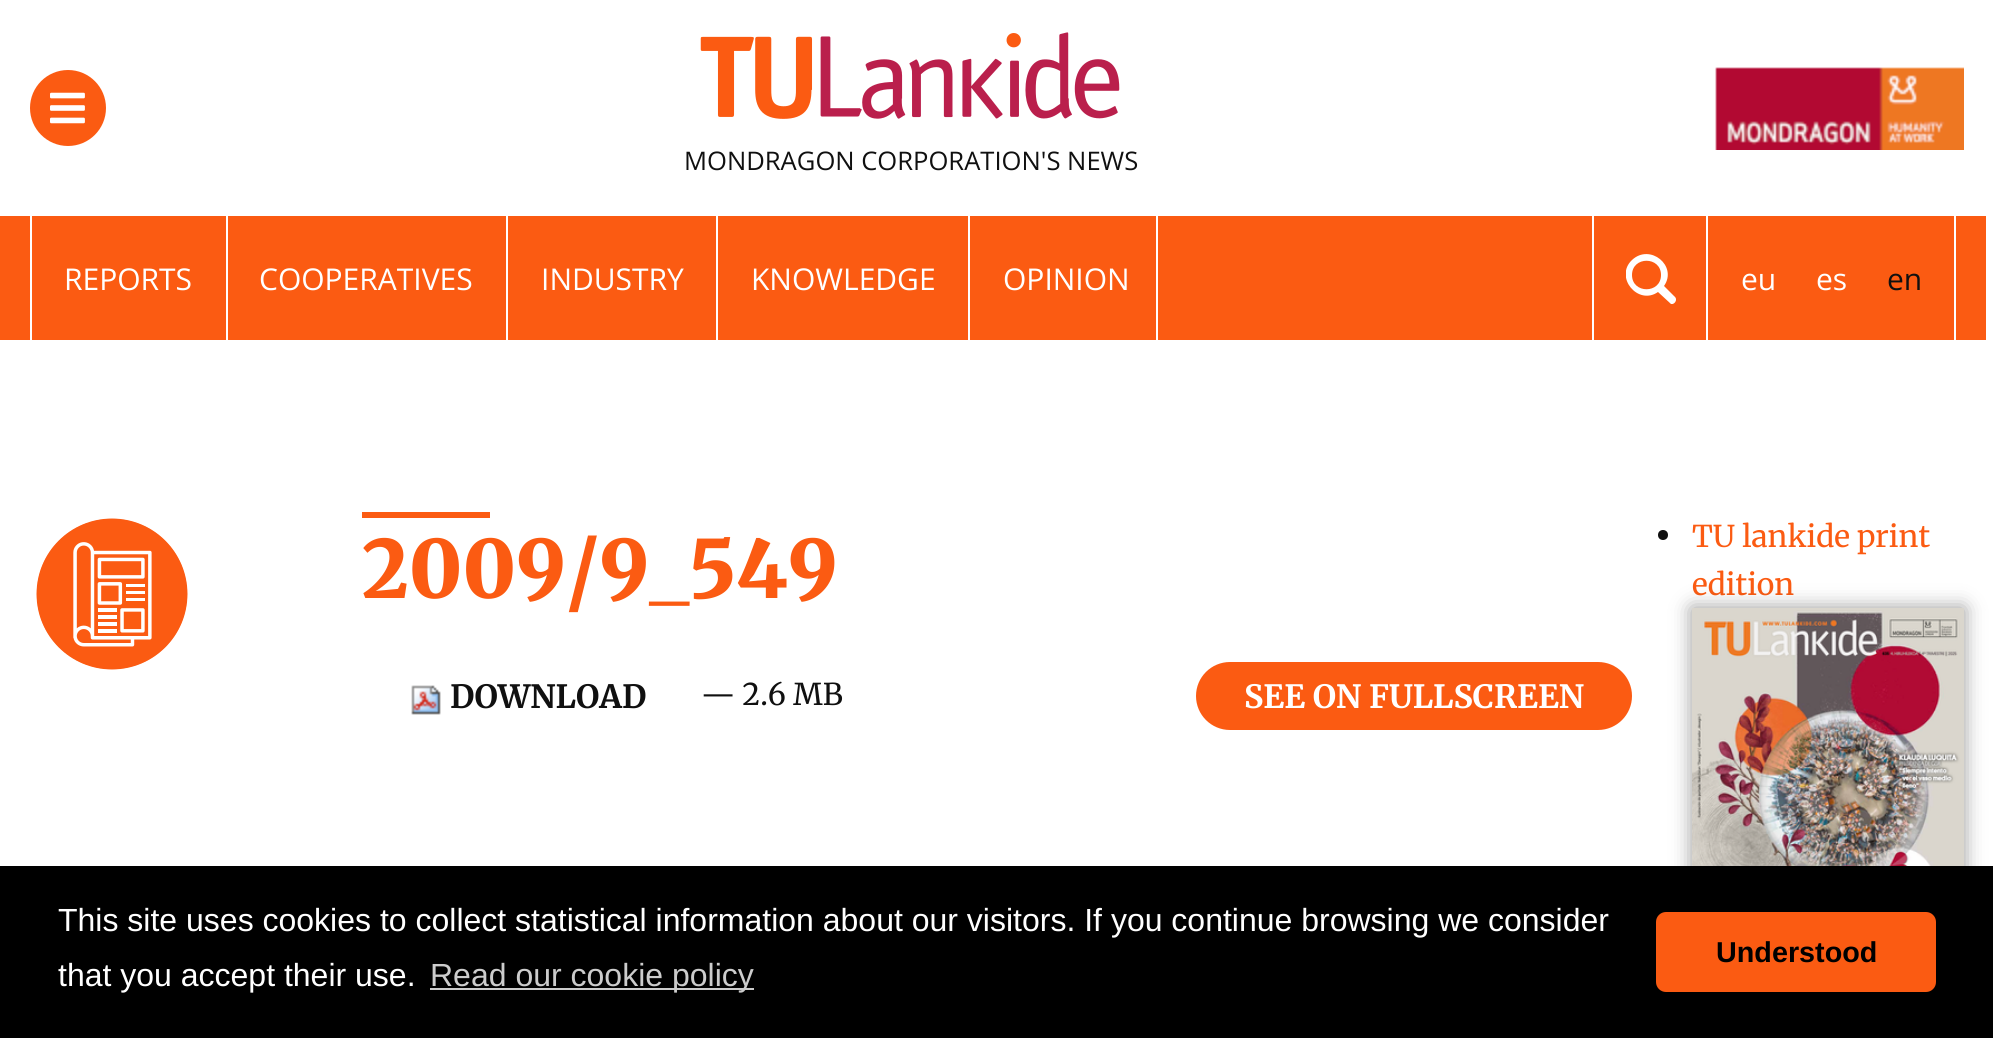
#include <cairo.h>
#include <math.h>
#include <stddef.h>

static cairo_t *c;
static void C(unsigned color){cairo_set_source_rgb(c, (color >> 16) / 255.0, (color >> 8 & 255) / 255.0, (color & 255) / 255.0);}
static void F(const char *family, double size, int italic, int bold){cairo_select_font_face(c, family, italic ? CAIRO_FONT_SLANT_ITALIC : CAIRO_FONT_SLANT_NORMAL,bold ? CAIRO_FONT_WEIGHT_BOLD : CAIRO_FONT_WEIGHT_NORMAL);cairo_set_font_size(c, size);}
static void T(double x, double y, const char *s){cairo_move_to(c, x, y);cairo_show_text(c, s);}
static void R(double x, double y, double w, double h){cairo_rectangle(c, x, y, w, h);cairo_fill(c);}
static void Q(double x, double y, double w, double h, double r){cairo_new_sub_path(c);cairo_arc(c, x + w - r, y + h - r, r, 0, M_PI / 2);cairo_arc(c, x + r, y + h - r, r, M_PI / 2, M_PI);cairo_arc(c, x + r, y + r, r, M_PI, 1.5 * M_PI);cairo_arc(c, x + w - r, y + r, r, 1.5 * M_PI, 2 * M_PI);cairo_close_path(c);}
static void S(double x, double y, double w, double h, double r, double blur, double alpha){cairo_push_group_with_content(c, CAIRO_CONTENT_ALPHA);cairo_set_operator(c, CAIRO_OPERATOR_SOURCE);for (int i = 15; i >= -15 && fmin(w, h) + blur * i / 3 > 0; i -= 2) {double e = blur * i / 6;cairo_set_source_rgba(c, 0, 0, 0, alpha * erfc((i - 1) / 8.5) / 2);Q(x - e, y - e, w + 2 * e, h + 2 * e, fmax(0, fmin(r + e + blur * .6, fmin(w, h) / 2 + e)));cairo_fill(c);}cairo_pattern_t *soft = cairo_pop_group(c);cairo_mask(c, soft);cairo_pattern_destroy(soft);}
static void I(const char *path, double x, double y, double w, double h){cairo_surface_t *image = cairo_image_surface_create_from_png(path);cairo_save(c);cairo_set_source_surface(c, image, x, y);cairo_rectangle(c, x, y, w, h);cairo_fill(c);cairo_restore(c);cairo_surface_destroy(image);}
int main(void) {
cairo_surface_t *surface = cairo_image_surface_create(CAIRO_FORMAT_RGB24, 1993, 1038);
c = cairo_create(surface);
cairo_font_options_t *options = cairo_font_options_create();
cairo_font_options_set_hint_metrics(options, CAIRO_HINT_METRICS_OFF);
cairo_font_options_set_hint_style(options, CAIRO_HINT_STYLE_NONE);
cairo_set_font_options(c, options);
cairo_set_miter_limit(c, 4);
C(0xffffff);
cairo_paint(c);
C(0xfb5b12);
cairo_arc(c,68,108,38,0,2 * M_PI);
cairo_fill(c);
I("1.png",50,92,35,32);
I("2.png",1715,67,249,83);
I("3.png",700,32,420,87);
F("Open Sans",25.6,0,0);
C(0x101010);
T(684,170,"MONDRAGON CORPORATION'S NEWS");
C(0xfb5b12);
R(0,216,1986,124);
C(0xffffff);
R(1156,216,2,124);
R(30,216,2,124);
F("Open Sans",30,0,0);
T(64,290,"REPORTS");
R(226,216,2,124);
T(259,290,"COOPERATIVES");
R(506,216,2,124);
T(541,290,"INDUSTRY");
R(716,216,2,124);
T(751,290,"KNOWLEDGE");
R(968,216,2,124);
T(1003,290,"OPINION");
R(1592,216,2,124);
cairo_save(c);
cairo_rectangle(c,1626,254,50,50);
cairo_clip(c);
cairo_new_path(c);
cairo_move_to(c,1675,297);
cairo_line_to(c,1664,286);
cairo_curve_to(c,1678,266,1650,243,1632,260);
cairo_curve_to(c,1614,277,1638,306,1658,292);
cairo_line_to(c,1671,304);
cairo_curve_to(c,1674,305,1678,300,1675,297);
cairo_close_path(c);
cairo_move_to(c,1632,275);
cairo_curve_to(c,1632,256,1661,256,1661,275);
cairo_curve_to(c,1661,294,1632,294,1632,275);
cairo_close_path(c);
cairo_fill(c);
cairo_restore(c);
R(1954,216,2,124);
R(1706,216,2,124);
T(1741,290,"eu");
T(1816,290,"es");
C(0x101010);
T(1887,290,"en");
I("4.png",36,518,152,152);
C(0xfb5b12);
R(362,512,128,6);
F("Merriweather Black",80,0,0);
T(362,598,"2009/9_549");
I("5.png",411,685,30,30);
F("Merriweather",32,0,1);
C(0x101010);
T(450,708,"DOWNLOAD");
F("Merriweather",30,0,0);
T(701,705,"— 2.6 MB");
C(0xfb5b12);
Q(1196,662,436,68,34);
cairo_fill(c);
F("Merriweather",32,0,1);
C(0xffffff);
T(1244,708,"SEE ON FULLSCREEN");
C(0x101010);
cairo_new_path(c);
cairo_arc(c,1663,535,5,0,2 * M_PI);
cairo_fill(c);
F("Merriweather",30,0,0);
C(0xfb5b12);
T(1692,547,"TU lankide print");
T(1692,595,"edition");
C(0x333333);
S(1692,608,272,358,0,10,.5);
I("6.png",1692,608,272,258);
C(0x000000);
R(0,866,1993,172);
F("Liberation Sans",32,0,0);
C(0xffffff);
T(58,931,"This site uses cookies to collect statistical information about our visitors. If you continue browsing we consider");
T(58,986,"that you accept their use.");
C(0xcccccc);
R(430,988,324,2);
T(430,986,"Read our cookie policy");
C(0xfb5b12);
Q(1656,912,280,80,10);
cairo_fill(c);
F("Liberation Sans",28.75,0,1);
C(0x000000);
T(1716,962,"Understood");
cairo_surface_write_to_png(surface, "o.png");
cairo_font_options_destroy(options);
cairo_destroy(c);
cairo_surface_destroy(surface);
return 0;
}
